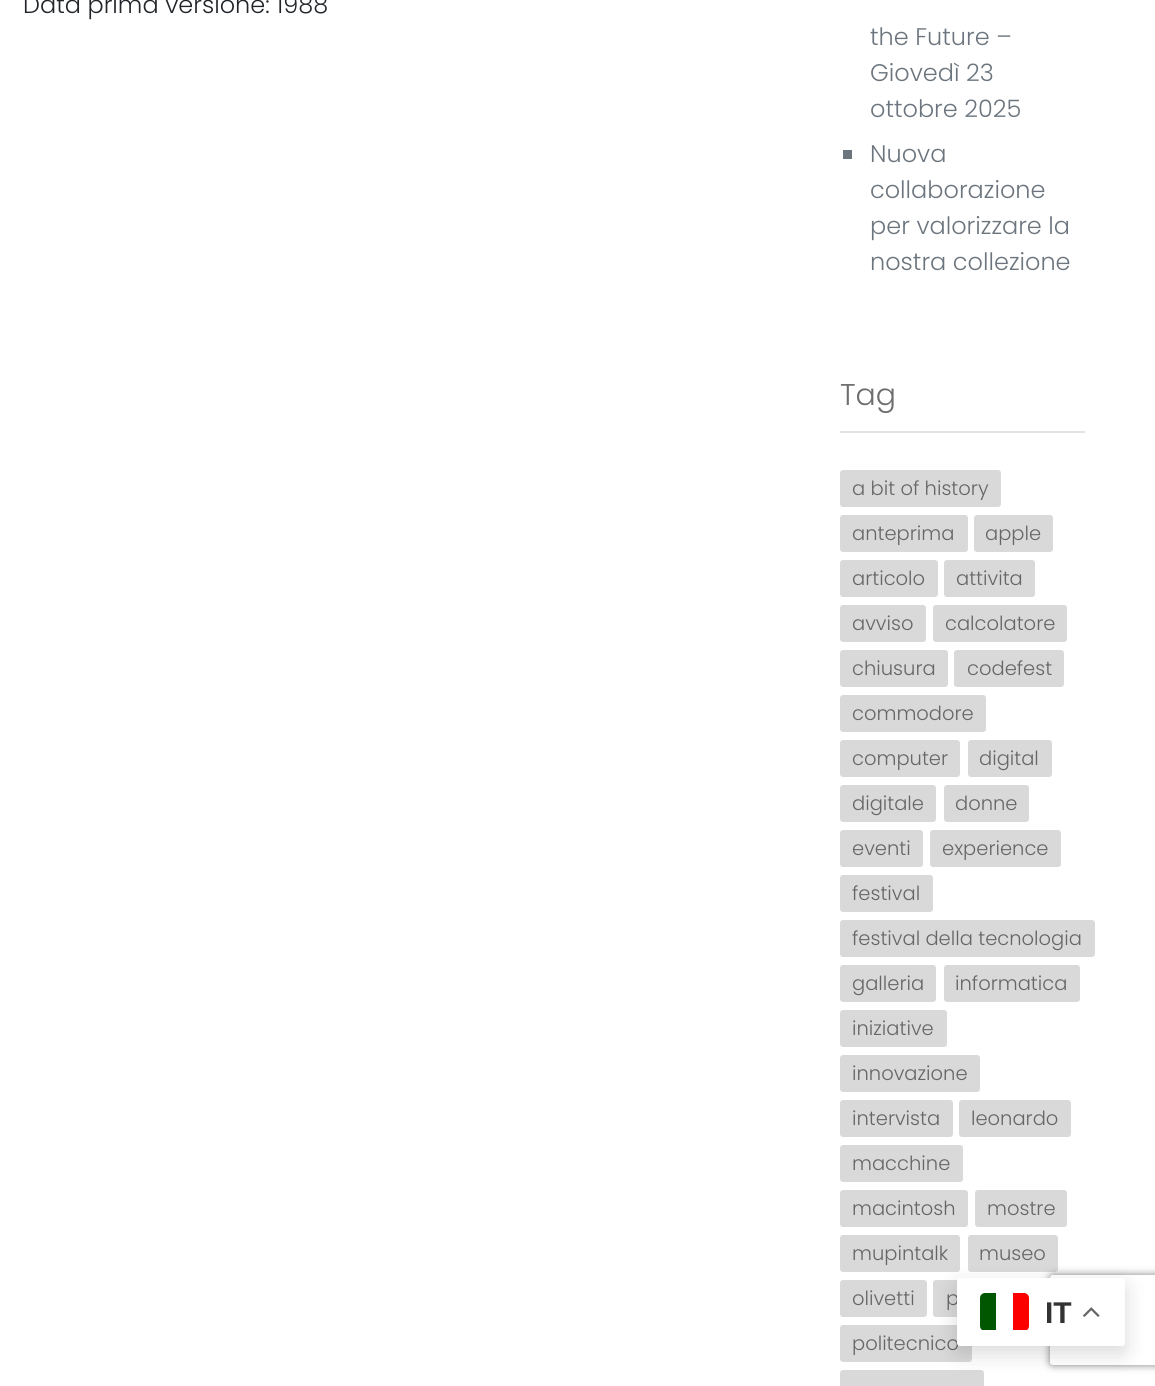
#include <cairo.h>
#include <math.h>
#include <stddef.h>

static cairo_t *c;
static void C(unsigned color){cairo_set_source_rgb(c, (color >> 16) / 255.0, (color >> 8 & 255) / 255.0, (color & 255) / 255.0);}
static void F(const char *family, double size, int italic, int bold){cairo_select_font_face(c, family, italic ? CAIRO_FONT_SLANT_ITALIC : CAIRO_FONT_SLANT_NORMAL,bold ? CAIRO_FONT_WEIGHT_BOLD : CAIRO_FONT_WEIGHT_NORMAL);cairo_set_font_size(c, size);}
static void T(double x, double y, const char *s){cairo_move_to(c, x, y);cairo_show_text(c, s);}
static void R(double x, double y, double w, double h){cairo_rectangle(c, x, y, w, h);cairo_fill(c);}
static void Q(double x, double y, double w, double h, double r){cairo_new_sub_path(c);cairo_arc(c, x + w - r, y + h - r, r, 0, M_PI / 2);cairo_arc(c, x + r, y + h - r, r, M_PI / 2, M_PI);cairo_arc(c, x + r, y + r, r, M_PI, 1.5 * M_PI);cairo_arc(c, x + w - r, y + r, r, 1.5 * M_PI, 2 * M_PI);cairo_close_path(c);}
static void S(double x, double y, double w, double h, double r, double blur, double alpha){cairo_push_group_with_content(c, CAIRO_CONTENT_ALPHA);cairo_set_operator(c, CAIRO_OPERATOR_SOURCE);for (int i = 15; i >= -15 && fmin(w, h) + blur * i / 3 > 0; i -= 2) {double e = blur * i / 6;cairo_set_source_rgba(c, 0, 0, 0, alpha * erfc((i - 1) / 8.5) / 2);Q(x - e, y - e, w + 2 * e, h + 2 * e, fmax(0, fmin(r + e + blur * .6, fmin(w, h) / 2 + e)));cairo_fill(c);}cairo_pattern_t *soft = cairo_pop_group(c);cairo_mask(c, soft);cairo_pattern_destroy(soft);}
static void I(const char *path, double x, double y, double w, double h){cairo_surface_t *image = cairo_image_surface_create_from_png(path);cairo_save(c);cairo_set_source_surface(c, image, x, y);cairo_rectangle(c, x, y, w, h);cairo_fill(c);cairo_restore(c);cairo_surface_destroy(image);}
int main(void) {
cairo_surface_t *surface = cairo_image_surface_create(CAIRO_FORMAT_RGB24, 1155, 1386);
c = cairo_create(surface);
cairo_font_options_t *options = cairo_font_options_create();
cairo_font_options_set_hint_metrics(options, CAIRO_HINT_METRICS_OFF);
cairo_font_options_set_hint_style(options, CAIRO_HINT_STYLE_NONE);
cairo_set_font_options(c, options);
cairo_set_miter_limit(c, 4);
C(0xffffff);
cairo_paint(c);
F("Poppins Light",24,0,0);
C(0x212529);
T(23,13,"Data prima versione: 1988");
C(0x6c757d);
T(870,45,"the Future –");
T(870,81,"Giovedì 23");
T(870,117,"ottobre 2025");
R(843,150,9,9);
T(870,162,"Nuova");
T(870,198,"collaborazione");
T(870,234,"per valorizzare la");
T(870,270,"nostra collezione");
C(0xe2e2e2);
R(840,431,245,2);
F("Poppins Light",30,0,0);
C(0x6d6d6d);
T(840,405,"Tag");
C(0xd9d9d9);
Q(840,470,161,37,3);
cairo_fill(c);
F("Poppins Light",19.5,0,0);
C(0x666666);
T(852,495,"a bit of history");
C(0xd9d9d9);
Q(840,515,128,37,3);
cairo_fill(c);
C(0x666666);
T(852,540,"anteprima");
C(0xd9d9d9);
Q(974,515,79,37,3);
cairo_fill(c);
C(0x666666);
T(985,540,"apple");
C(0xd9d9d9);
Q(840,560,98,37,3);
cairo_fill(c);
C(0x666666);
T(852,585,"articolo");
C(0xd9d9d9);
Q(944,560,91,37,3);
cairo_fill(c);
C(0x666666);
T(956,585,"attivita");
C(0xd9d9d9);
Q(840,605,86,37,3);
cairo_fill(c);
C(0x666666);
T(852,630,"avviso");
C(0xd9d9d9);
Q(933,605,134,37,3);
cairo_fill(c);
C(0x666666);
T(945,630,"calcolatore");
C(0xd9d9d9);
Q(840,650,108,37,3);
cairo_fill(c);
C(0x666666);
T(852,675,"chiusura");
C(0xd9d9d9);
Q(954,650,110,37,3);
cairo_fill(c);
C(0x666666);
T(967,675,"codefest");
C(0xd9d9d9);
Q(840,695,146,37,3);
cairo_fill(c);
C(0x666666);
T(852,720,"commodore");
C(0xd9d9d9);
Q(840,740,120,37,3);
cairo_fill(c);
C(0x666666);
T(852,765,"computer");
C(0xd9d9d9);
Q(968,740,84,37,3);
cairo_fill(c);
C(0x666666);
T(979,765,"digital");
C(0xd9d9d9);
Q(840,785,96,37,3);
cairo_fill(c);
C(0x666666);
T(852,810,"digitale");
C(0xd9d9d9);
Q(944,785,85,37,3);
cairo_fill(c);
C(0x666666);
T(955,810,"donne");
C(0xd9d9d9);
Q(840,830,83,37,3);
cairo_fill(c);
C(0x666666);
T(852,855,"eventi");
C(0xd9d9d9);
Q(930,830,131,37,3);
cairo_fill(c);
C(0x666666);
T(942,855,"experience");
C(0xd9d9d9);
Q(840,875,93,37,3);
cairo_fill(c);
C(0x666666);
T(852,900,"festival");
C(0xd9d9d9);
Q(840,920,255,37,3);
cairo_fill(c);
C(0x666666);
T(852,945,"festival della tecnologia");
C(0xd9d9d9);
Q(840,965,96,37,3);
cairo_fill(c);
C(0x666666);
T(852,990,"galleria");
C(0xd9d9d9);
Q(944,965,136,37,3);
cairo_fill(c);
C(0x666666);
T(955,990,"informatica");
C(0xd9d9d9);
Q(840,1010,107,37,3);
cairo_fill(c);
C(0x666666);
T(852,1035,"iniziative");
C(0xd9d9d9);
Q(840,1055,140,37,3);
cairo_fill(c);
C(0x666666);
T(852,1080,"innovazione");
C(0xd9d9d9);
Q(840,1100,113,37,3);
cairo_fill(c);
C(0x666666);
T(852,1125,"intervista");
C(0xd9d9d9);
Q(959,1100,112,37,3);
cairo_fill(c);
C(0x666666);
T(971,1125,"leonardo");
C(0xd9d9d9);
Q(840,1145,123,37,3);
cairo_fill(c);
C(0x666666);
T(852,1170,"macchine");
C(0xd9d9d9);
Q(840,1190,128,37,3);
cairo_fill(c);
C(0x666666);
T(852,1215,"macintosh");
C(0xd9d9d9);
Q(975,1190,92,37,3);
cairo_fill(c);
C(0x666666);
T(987,1215,"mostre");
C(0xd9d9d9);
Q(840,1235,120,37,3);
cairo_fill(c);
C(0x666666);
T(852,1260,"mupintalk");
C(0xd9d9d9);
Q(968,1235,90,37,3);
cairo_fill(c);
C(0x666666);
T(979,1260,"museo");
C(0xd9d9d9);
Q(840,1280,87,37,3);
cairo_fill(c);
C(0x666666);
T(852,1305,"olivetti");
C(0xd9d9d9);
Q(933,1280,141,37,3);
cairo_fill(c);
C(0x666666);
T(946,1305,"p");
C(0xd9d9d9);
Q(840,1325,132,37,3);
cairo_fill(c);
C(0x666666);
T(852,1350,"politecnico");
C(0xd9d9d9);
Q(840,1370,144,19,3);
cairo_fill(c);
cairo_save(c);
cairo_set_fill_rule(c,CAIRO_FILL_RULE_EVEN_ODD);
cairo_new_path(c);
cairo_move_to(c,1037,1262);
cairo_line_to(c,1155,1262);
cairo_line_to(c,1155,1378);
cairo_line_to(c,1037,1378);
cairo_close_path(c);
cairo_move_to(c,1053,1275);
cairo_line_to(c,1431,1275);
cairo_curve_to(c,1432.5,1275,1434,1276.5,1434,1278);
cairo_line_to(c,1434,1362);
cairo_curve_to(c,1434,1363.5,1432.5,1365,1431,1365);
cairo_line_to(c,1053,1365);
cairo_curve_to(c,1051.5,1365,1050,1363.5,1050,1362);
cairo_line_to(c,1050,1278);
cairo_curve_to(c,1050,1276.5,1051.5,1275,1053,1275);
cairo_close_path(c);
cairo_clip(c);
C(0x808080);
S(1050,1275,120,90,3,4,1);
cairo_restore(c);
C(0x000000);
S(957,1286,168,67,3,11,.15);
C(0xffffff);
Q(957,1278,168,68,3);
cairo_fill(c);
cairo_save(c);
Q(980,1293,49,38,5);
cairo_clip(c);
C(0x005700);
cairo_new_path(c);
cairo_move_to(c,985,1293);
cairo_line_to(c,996,1293);
cairo_line_to(c,996,1330);
cairo_line_to(c,980,1330);
cairo_line_to(c,980,1298);
cairo_curve_to(c,980,1295,982,1293,985,1293);
cairo_close_path(c);
cairo_fill(c);
C(0xfc0000);
cairo_new_path(c);
cairo_move_to(c,1013,1293);
cairo_line_to(c,1024,1293);
cairo_curve_to(c,1027,1293,1029,1295,1029,1298);
cairo_line_to(c,1029,1330);
cairo_line_to(c,1013,1330);
cairo_close_path(c);
cairo_fill(c);
cairo_restore(c);
F("Liberation Sans",30,0,1);
C(0x333333);
T(1045,1323,"IT");
I("1.png",1083,1307,17,10);
cairo_surface_write_to_png(surface, "o.png");
cairo_font_options_destroy(options);
cairo_destroy(c);
cairo_surface_destroy(surface);
return 0;
}
